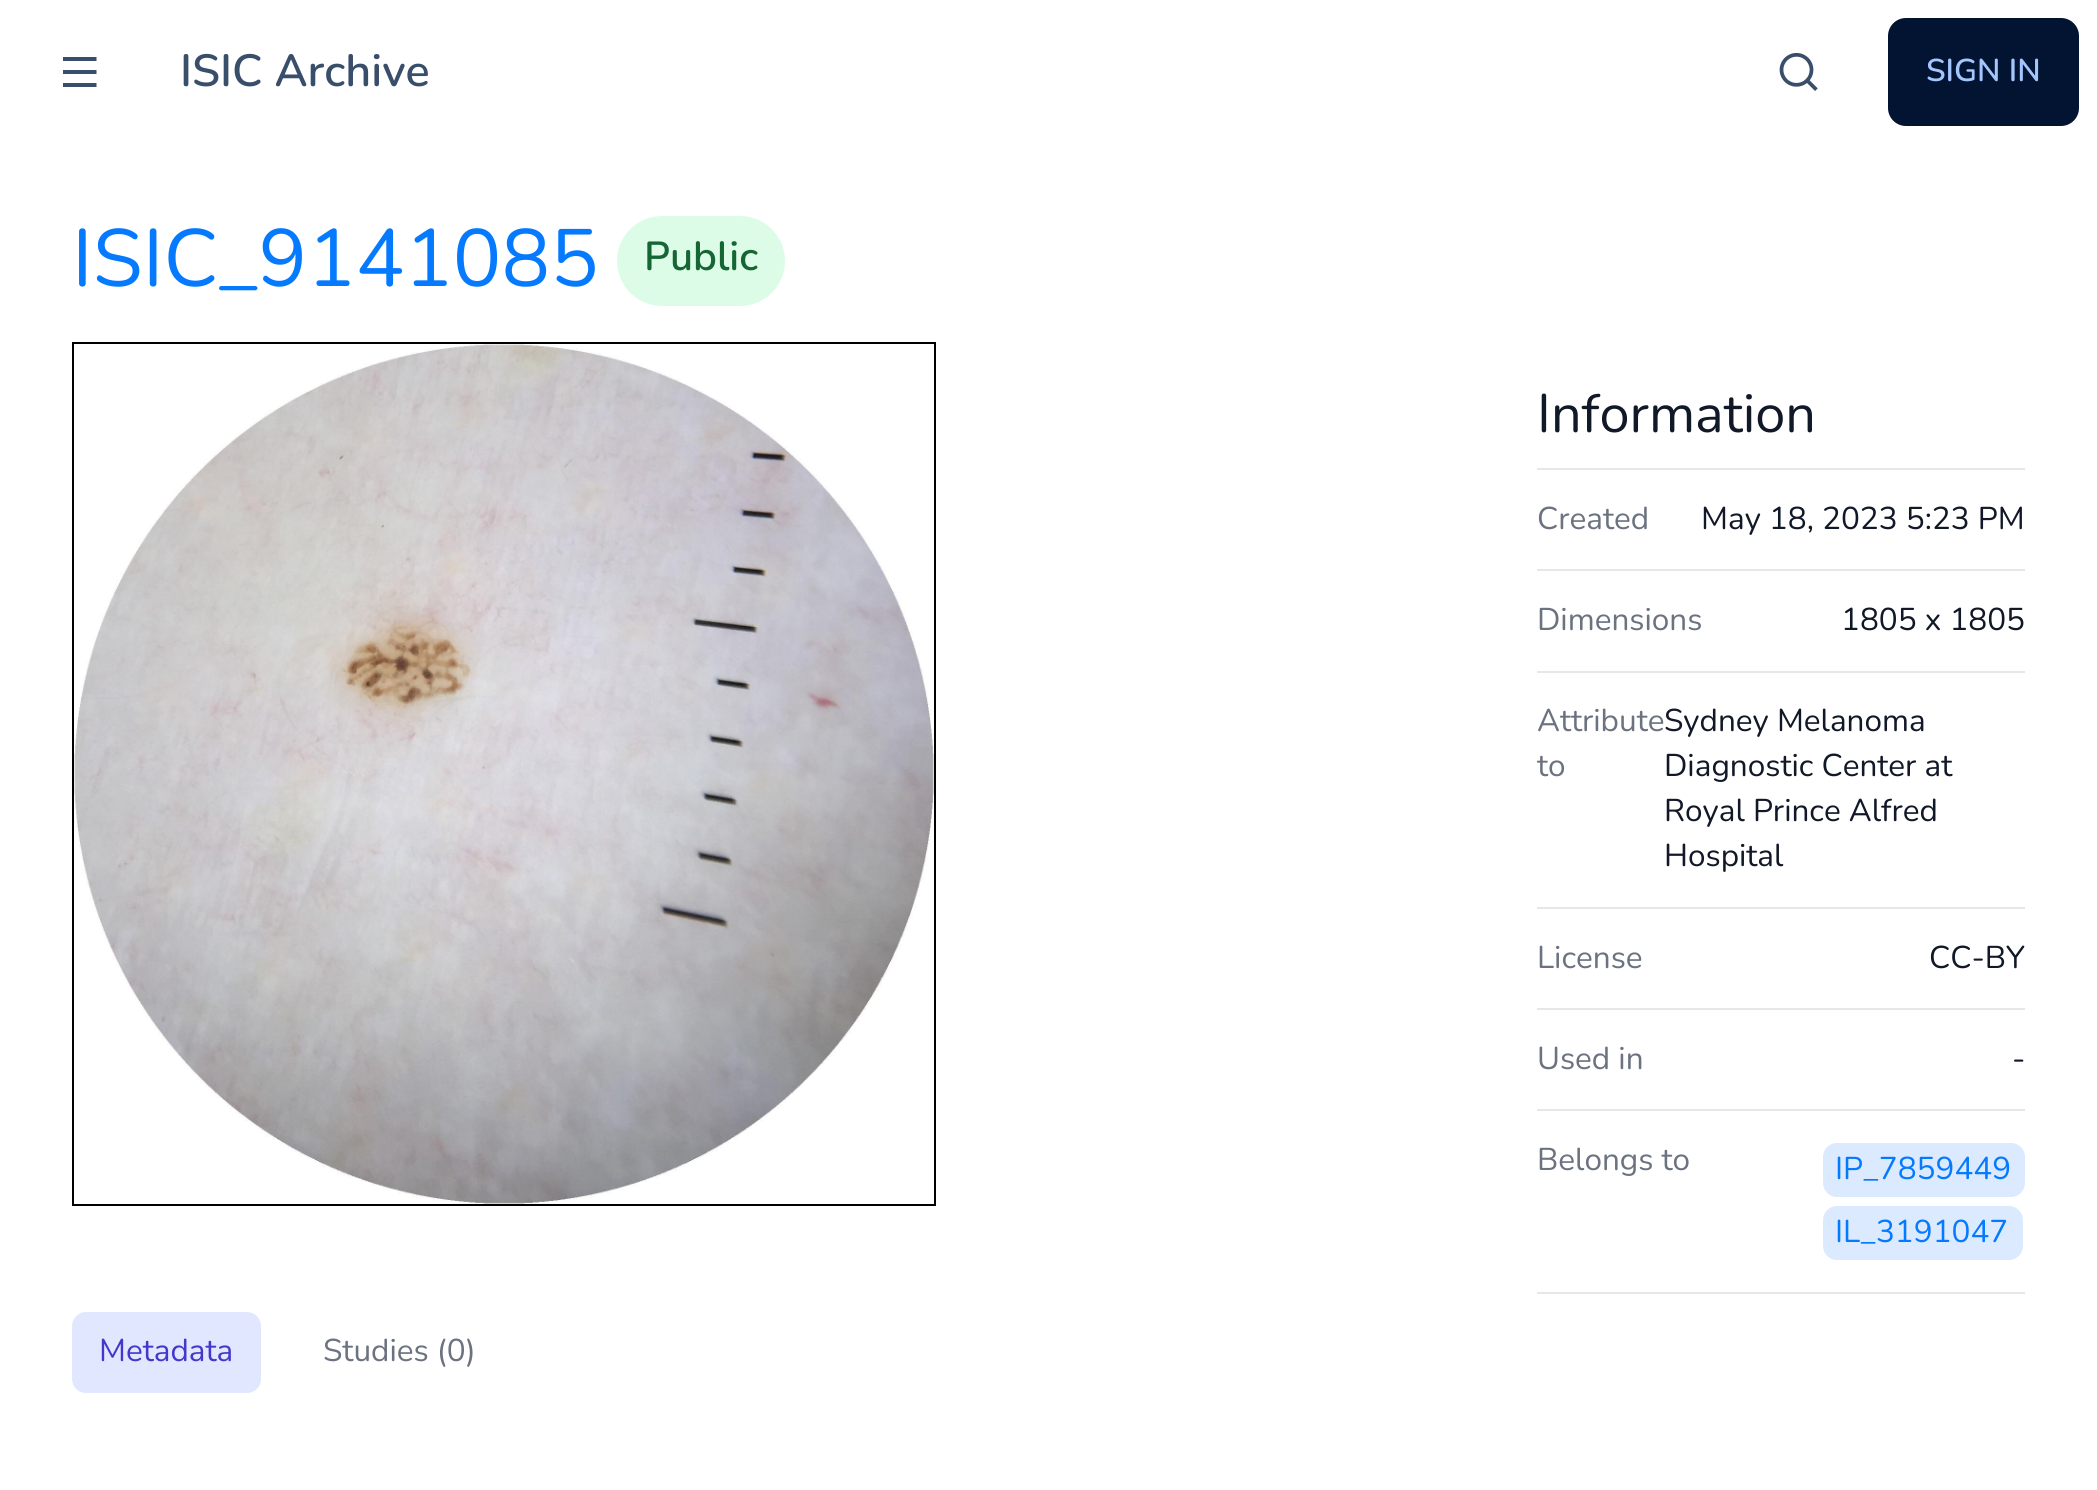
#include <cairo.h>
#include <math.h>
#include <stddef.h>

static cairo_t *c;
static void C(unsigned color){cairo_set_source_rgb(c, (color >> 16) / 255.0, (color >> 8 & 255) / 255.0, (color & 255) / 255.0);}
static void F(const char *family, double size, int italic, int bold){cairo_select_font_face(c, family, italic ? CAIRO_FONT_SLANT_ITALIC : CAIRO_FONT_SLANT_NORMAL,bold ? CAIRO_FONT_WEIGHT_BOLD : CAIRO_FONT_WEIGHT_NORMAL);cairo_set_font_size(c, size);}
static void T(double x, double y, const char *s){cairo_move_to(c, x, y);cairo_show_text(c, s);}
static void R(double x, double y, double w, double h){cairo_rectangle(c, x, y, w, h);cairo_fill(c);}
static void Q(double x, double y, double w, double h, double r){cairo_new_sub_path(c);cairo_arc(c, x + w - r, y + h - r, r, 0, M_PI / 2);cairo_arc(c, x + r, y + h - r, r, M_PI / 2, M_PI);cairo_arc(c, x + r, y + r, r, M_PI, 1.5 * M_PI);cairo_arc(c, x + w - r, y + r, r, 1.5 * M_PI, 2 * M_PI);cairo_close_path(c);}
static void I(const char *path, double x, double y, double w, double h){cairo_surface_t *image = cairo_image_surface_create_from_png(path);cairo_save(c);cairo_set_source_surface(c, image, x, y);cairo_rectangle(c, x, y, w, h);cairo_fill(c);cairo_restore(c);cairo_surface_destroy(image);}
int main(void) {
cairo_surface_t *surface = cairo_image_surface_create(CAIRO_FORMAT_RGB24, 2097, 1490);
c = cairo_create(surface);
cairo_font_options_t *options = cairo_font_options_create();
cairo_font_options_set_hint_metrics(options, CAIRO_HINT_METRICS_OFF);
cairo_font_options_set_hint_style(options, CAIRO_HINT_STYLE_NONE);
cairo_set_font_options(c, options);
cairo_set_miter_limit(c, 4);
C(0xffffff);
cairo_paint(c);
C(0x394e6a);
cairo_new_path(c);
cairo_move_to(c,63,57);
cairo_line_to(c,96.5,57);
cairo_line_to(c,96.5,61);
cairo_line_to(c,63,61);
cairo_close_path(c);
cairo_move_to(c,63,70);
cairo_line_to(c,96.5,70);
cairo_line_to(c,96.5,74);
cairo_line_to(c,63,74);
cairo_close_path(c);
cairo_move_to(c,63,83);
cairo_line_to(c,96.5,83);
cairo_line_to(c,96.5,87);
cairo_line_to(c,63,87);
cairo_close_path(c);
cairo_fill(c);
F("Nunito SemiBold",45,0,0);
T(180,86,"ISIC Archive");
I("1.png",1779,52,39,39);
C(0x021431);
Q(1889,19,189,106,17);
cairo_fill_preserve(c);
cairo_stroke(c);
F("Nunito SemiBold",31.5,0,0);
C(0xa3c6ff);
T(1926,81,"SIGN IN");
F("Nunito",81,0,0);
C(0x057aff);
T(72,286,"ISIC_9141085");
C(0xdcfce7);
Q(617,216,168,90,45);
cairo_fill(c);
F("Nunito SemiBold",40.5,0,0);
C(0x166534);
T(644,270,"Public");
cairo_rectangle(c,73,343,862,862);
C(0x000000);
cairo_stroke(c);
I("2.png",74,344,860,860);
F("Nunito",54,0,0);
C(0x111827);
T(1537,432,"Information");
C(0xe5e7eb);
R(1537,468,488,2);
R(1537,1292,488,2);
F("Nunito",31.5,0,0);
C(0x6b7280);
T(1537,529,"Created");
C(0x111827);
T(1701,529,"May 18, 2023 5:23 PM");
C(0xe5e7eb);
R(1537,569,488,2);
C(0x6b7280);
T(1537,630,"Dimensions");
C(0x111827);
T(1841,630,"1805 x 1805");
C(0xe5e7eb);
R(1537,671,488,2);
C(0x6b7280);
T(1537,731,"Attribute");
T(1537,776,"to");
C(0x111827);
T(1664,731,"Sydney Melanoma");
T(1664,776,"Diagnostic Center at");
T(1664,821,"Royal Prince Alfred");
T(1664,866,"Hospital");
C(0xe5e7eb);
R(1537,907,488,2);
C(0x6b7280);
T(1537,968,"License");
C(0x111827);
T(1929,968,"CC-BY");
C(0xe5e7eb);
R(1537,1008,488,2);
C(0x6b7280);
T(1537,1069,"Used in");
C(0x111827);
T(2012,1069,"-");
C(0xe5e7eb);
R(1537,1109,488,2);
C(0x6b7280);
T(1537,1170,"Belongs to");
C(0xdbeafe);
Q(1823,1143,202,54,14);
cairo_fill(c);
C(0x057aff);
T(1835,1179,"IP_7859449");
C(0xdbeafe);
Q(1823,1206,200,54,14);
cairo_fill(c);
C(0x057aff);
T(1835,1242,"IL_3191047");
C(0xe0e7ff);
Q(72,1312,189,81,14);
cairo_fill(c);
C(0x4338ca);
T(99,1361,"Metadata");
C(0x6b7280);
T(323,1361,"Studies (0)");
cairo_surface_write_to_png(surface, "o.png");
cairo_font_options_destroy(options);
cairo_destroy(c);
cairo_surface_destroy(surface);
return 0;
}
